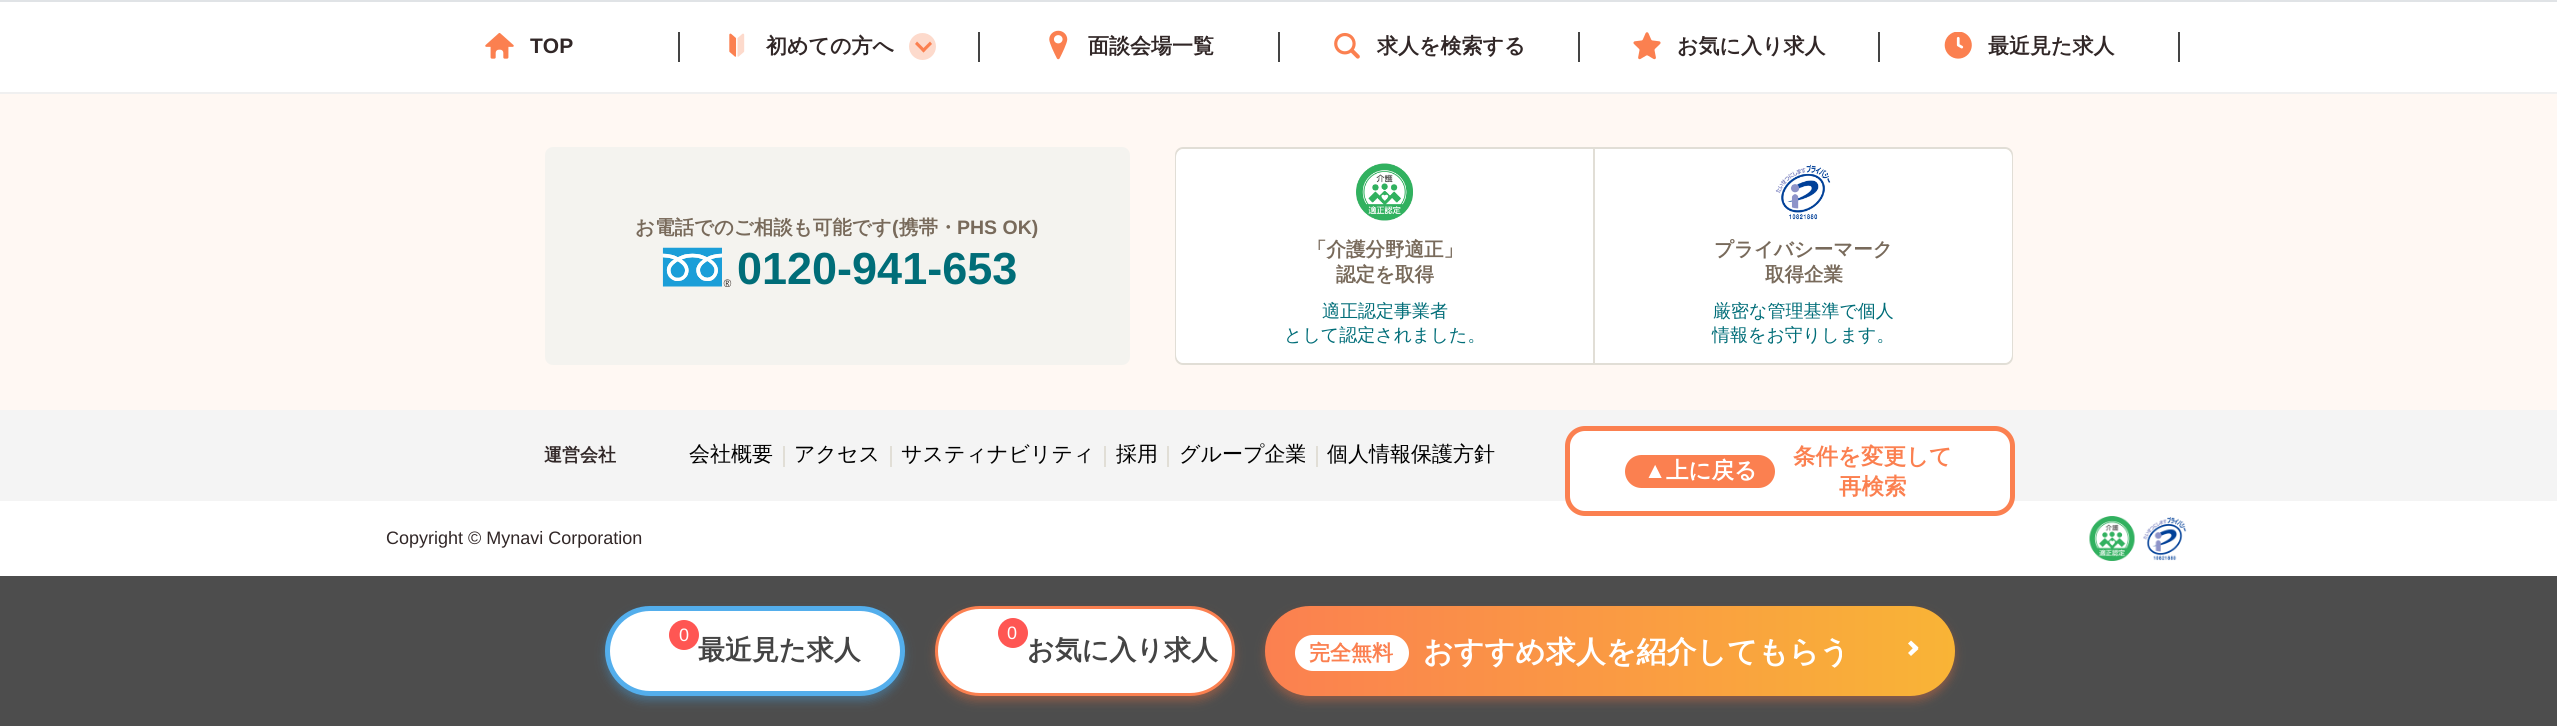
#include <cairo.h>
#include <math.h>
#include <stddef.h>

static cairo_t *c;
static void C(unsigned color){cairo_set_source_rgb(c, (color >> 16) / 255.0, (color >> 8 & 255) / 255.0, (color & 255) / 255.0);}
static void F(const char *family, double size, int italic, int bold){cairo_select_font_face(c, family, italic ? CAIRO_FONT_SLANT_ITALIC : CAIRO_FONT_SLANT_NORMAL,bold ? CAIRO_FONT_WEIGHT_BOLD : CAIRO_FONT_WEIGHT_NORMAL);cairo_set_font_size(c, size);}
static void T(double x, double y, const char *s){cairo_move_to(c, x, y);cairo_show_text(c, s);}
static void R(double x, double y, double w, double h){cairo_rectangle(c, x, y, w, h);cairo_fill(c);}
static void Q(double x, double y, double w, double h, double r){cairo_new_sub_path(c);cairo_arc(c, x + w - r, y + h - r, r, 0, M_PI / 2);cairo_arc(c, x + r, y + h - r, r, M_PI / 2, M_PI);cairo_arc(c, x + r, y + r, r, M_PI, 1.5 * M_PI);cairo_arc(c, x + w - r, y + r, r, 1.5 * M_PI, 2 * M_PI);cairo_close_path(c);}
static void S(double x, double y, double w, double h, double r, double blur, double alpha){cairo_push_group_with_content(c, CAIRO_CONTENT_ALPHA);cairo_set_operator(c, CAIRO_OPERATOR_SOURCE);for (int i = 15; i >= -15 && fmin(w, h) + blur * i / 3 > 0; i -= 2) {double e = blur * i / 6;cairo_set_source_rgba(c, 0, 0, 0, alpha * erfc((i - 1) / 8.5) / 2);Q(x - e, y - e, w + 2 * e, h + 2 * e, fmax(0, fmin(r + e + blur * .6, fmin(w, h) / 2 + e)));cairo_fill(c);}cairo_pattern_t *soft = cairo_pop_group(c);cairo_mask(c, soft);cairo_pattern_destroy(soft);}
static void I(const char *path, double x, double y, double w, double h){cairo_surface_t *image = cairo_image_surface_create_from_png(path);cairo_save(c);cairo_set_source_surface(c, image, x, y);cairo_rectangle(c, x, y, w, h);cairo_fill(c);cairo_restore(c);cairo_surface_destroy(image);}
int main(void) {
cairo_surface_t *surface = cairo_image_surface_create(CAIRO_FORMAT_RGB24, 2557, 726);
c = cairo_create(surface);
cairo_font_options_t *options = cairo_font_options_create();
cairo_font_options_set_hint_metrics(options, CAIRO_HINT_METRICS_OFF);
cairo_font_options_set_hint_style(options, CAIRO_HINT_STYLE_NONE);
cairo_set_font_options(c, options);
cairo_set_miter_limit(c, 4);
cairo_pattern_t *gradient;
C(0xf4f4f4);
cairo_paint(c);
C(0xe0e3e6);
R(0,0,2557,2);
C(0xffffff);
R(0,2,2557,90);
C(0xf0f0f0);
R(0,92,2557,2);
I("1.png",485,32,29,27);
F("Liberation Sans",21,0,1);
C(0x312727);
T(530,53,"TOP");
C(0x444444);
R(678,32,2,30);
I("2.png",729,33,16,24);
F("WenQuanYi Zen Hei",21,0,1);
C(0x312727);
T(766,53,"初めての方へ");
C(0xfddacc);
cairo_new_path(c);
cairo_arc(c,922.5,46.5,13.5,0,2 * M_PI);
cairo_fill(c);
C(0xfb8050);
cairo_new_path(c);
cairo_move_to(c,932,44);
cairo_line_to(c,923.5,52.5);
cairo_line_to(c,921.5,50);
cairo_line_to(c,930,41.5);
cairo_close_path(c);
cairo_fill(c);
cairo_new_path(c);
cairo_move_to(c,925.5,50);
cairo_line_to(c,923.5,52.5);
cairo_line_to(c,915,44);
cairo_line_to(c,917,41.5);
cairo_close_path(c);
cairo_fill(c);
C(0x444444);
R(978,32,2,30);
I("3.png",1049,30,19,30);
C(0x312727);
T(1088,53,"面談会場一覧");
C(0x444444);
R(1278,32,2,30);
I("4.png",1334,32,26,27);
C(0x312727);
T(1377,53,"求人を検索する");
C(0x444444);
R(1578,32,2,30);
I("5.png",1633,32,28,28);
C(0x312727);
T(1677,53,"お気に入り求人");
C(0x444444);
R(1878,32,2,30);
I("6.png",1944,32,28,27);
C(0x312727);
T(1988,53,"最近見た求人");
C(0x444444);
R(2178,32,2,30);
C(0xfff8f3);
R(0,94,2557,316);
C(0xf4f3ef);
Q(545,147,585,218,8);
cairo_fill(c);
F("WenQuanYi Zen Hei",19.5,0,1);
C(0x786a5b);
T(635,234,"お電話でのご相談も可能です");
F("Liberation Sans",19.5,0,1);
T(892,234,"(");
F("WenQuanYi Zen Hei",19.5,0,1);
T(899,234,"携帯・");
F("Liberation Sans",19.5,0,1);
T(957,234,"PHS OK)");
I("7.png",662,247,70,40);
F("Liberation Sans",45,0,1);
C(0x006d78);
T(737,284,"0120-941-653");
Q(1176,148,836,216,7);
C(0xe1ded6);
cairo_stroke(c);
C(0xffffff);
cairo_new_path(c);
cairo_move_to(c,1184,149);
cairo_line_to(c,1595,149);
cairo_line_to(c,1595,363);
cairo_line_to(c,1184,363);
cairo_curve_to(c,1179.5,363,1176,359.5,1176,355);
cairo_line_to(c,1176,157);
cairo_curve_to(c,1176,152.5,1179.5,149,1184,149);
cairo_close_path(c);
cairo_fill(c);
C(0xe1ded6);
R(1593,149,2,214);
I("8.png",1356,163,57,58);
F("WenQuanYi Zen Hei",19.5,0,1);
C(0x786a5b);
T(1307,256,"「介護分野適正」");
T(1336,281,"認定を取得");
F("WenQuanYi Zen Hei Medium",18,0,0);
C(0x006d78);
T(1322,317,"適正認定事業者");
T(1284,341,"として認定されました。");
C(0xffffff);
cairo_new_path(c);
cairo_move_to(c,1595,149);
cairo_line_to(c,2004,149);
cairo_curve_to(c,2008.5,149,2012,152.5,2012,157);
cairo_line_to(c,2012,355);
cairo_curve_to(c,2012,359.5,2008.5,363,2004,363);
cairo_line_to(c,1595,363);
cairo_close_path(c);
cairo_fill(c);
I("9.png",1775,164,56,56);
F("WenQuanYi Zen Hei",19.5,0,1);
C(0x786a5b);
T(1714,256,"プライバシーマーク");
T(1765,281,"取得企業");
F("WenQuanYi Zen Hei Medium",18,0,0);
C(0x006d78);
T(1713,317,"厳密な管理基準で個人");
T(1712,341,"情報をお守りします。");
F("WenQuanYi Zen Hei",18,0,1);
C(0x312727);
T(544,461,"運営会社");
F("WenQuanYi Zen Hei Medium",21,0,0);
C(0x000000);
T(689,461,"会社概要");
C(0xe1ded6);
R(783,446,2,21);
C(0x000000);
T(794,461,"アクセス");
C(0xe1ded6);
R(890,446,2,21);
C(0x000000);
T(901,461,"サスティナビリティ");
C(0xe1ded6);
R(1104,446,2,21);
C(0x000000);
T(1116,461,"採用");
C(0xe1ded6);
R(1167,446,2,21);
C(0x000000);
T(1179,461,"グループ企業");
C(0xe1ded6);
R(1316,446,2,21);
C(0x000000);
T(1327,461,"個人情報保護方針");
C(0xffffff);
R(0,501,2557,75);
F("Liberation Sans",18,0,0);
C(0x312727);
T(386,544,"Copyright © Mynavi Corporation");
I("10.png",2089,516,46,45);
I("11.png",2143,517,44,44);
C(0xffffff);
Q(1567.5,428.5,445,85,17.5);
cairo_fill_preserve(c);
C(0xfb8050);
cairo_set_line_width(c,5);
cairo_stroke(c);
Q(1625,455,150,33,16.5);
cairo_fill(c);
F("Liberation Sans",22.5,0,1);
C(0xffffff);
T(1644,478,"▲");
F("WenQuanYi Zen Hei",22.5,0,1);
T(1666,478,"上に戻る");
C(0xfb8050);
T(1793,464,"条件を変更して");
T(1839,494,"再検索");
C(0x4d4d4d);
R(0,576,2557,150);
C(0x000000);
S(605,609,300,90,45,4.5,.14);
C(0x53aeec);
S(605,611,300,90,45,4.5,.4);
C(0xffffff);
Q(607.5,608.5,295,85,42.5);
cairo_fill_preserve(c);
C(0x53aeec);
cairo_stroke(c);
F("WenQuanYi Zen Hei",27,0,1);
C(0x444444);
T(698,659,"最近");
C(0xff5653);
cairo_new_path(c);
cairo_arc(c,684,635,15,0,2 * M_PI);
cairo_fill(c);
F("Liberation Sans",18,0,0);
C(0xffffff);
T(679,641,"0");
F("WenQuanYi Zen Hei",27,0,1);
C(0x444444);
T(752,659,"見た求人");
C(0x000000);
S(935,609,300,90,45,4.5,.14);
C(0xfb8050);
S(935,611,300,90,45,4.5,.4);
C(0xffffff);
Q(936.5,607.5,297,87,43.5);
cairo_fill_preserve(c);
C(0xfb8050);
cairo_set_line_width(c,3);
cairo_stroke(c);
C(0xff5653);
cairo_arc(c,1013,633,15,0,2 * M_PI);
cairo_fill(c);
F("Liberation Sans",18,0,0);
C(0xffffff);
T(1007,639,"0");
F("WenQuanYi Zen Hei",27,0,1);
C(0x444444);
T(1027,659,"お気に入り求人");
C(0x000000);
S(1265,609,690,90,45,4.5,.14);
C(0xfb8050);
S(1265,611,690,90,45,4.5,.4);
gradient = cairo_pattern_create_linear(1265,651,1955,651);
cairo_pattern_add_color_stop_rgba(gradient,0,0.984,0.502,0.314,1);
cairo_pattern_add_color_stop_rgba(gradient,1,0.976,0.706,0.212,1);
cairo_set_source(c,gradient);
cairo_pattern_destroy(gradient);
Q(1265,606,690,90,45);
cairo_fill(c);
C(0xffffff);
Q(1295,635,114,36,18);
cairo_fill(c);
F("WenQuanYi Zen Hei",21,0,1);
C(0xfb8050);
T(1309,660,"完全無料");
F("WenQuanYi Zen Hei",30,0,1);
C(0xffffff);
T(1423,662,"おすすめ求人を紹介してもらう");
cairo_new_path(c);
cairo_move_to(c,1911,640.5);
cairo_line_to(c,1918.5,647.5);
cairo_line_to(c,1915.5,651);
cairo_line_to(c,1908,643.5);
cairo_close_path(c);
cairo_fill(c);
cairo_new_path(c);
cairo_move_to(c,1915.5,645.5);
cairo_line_to(c,1918.5,649);
cairo_line_to(c,1911,656);
cairo_line_to(c,1908,653);
cairo_close_path(c);
cairo_fill(c);
cairo_surface_write_to_png(surface, "o.png");
cairo_font_options_destroy(options);
cairo_destroy(c);
cairo_surface_destroy(surface);
return 0;
}
